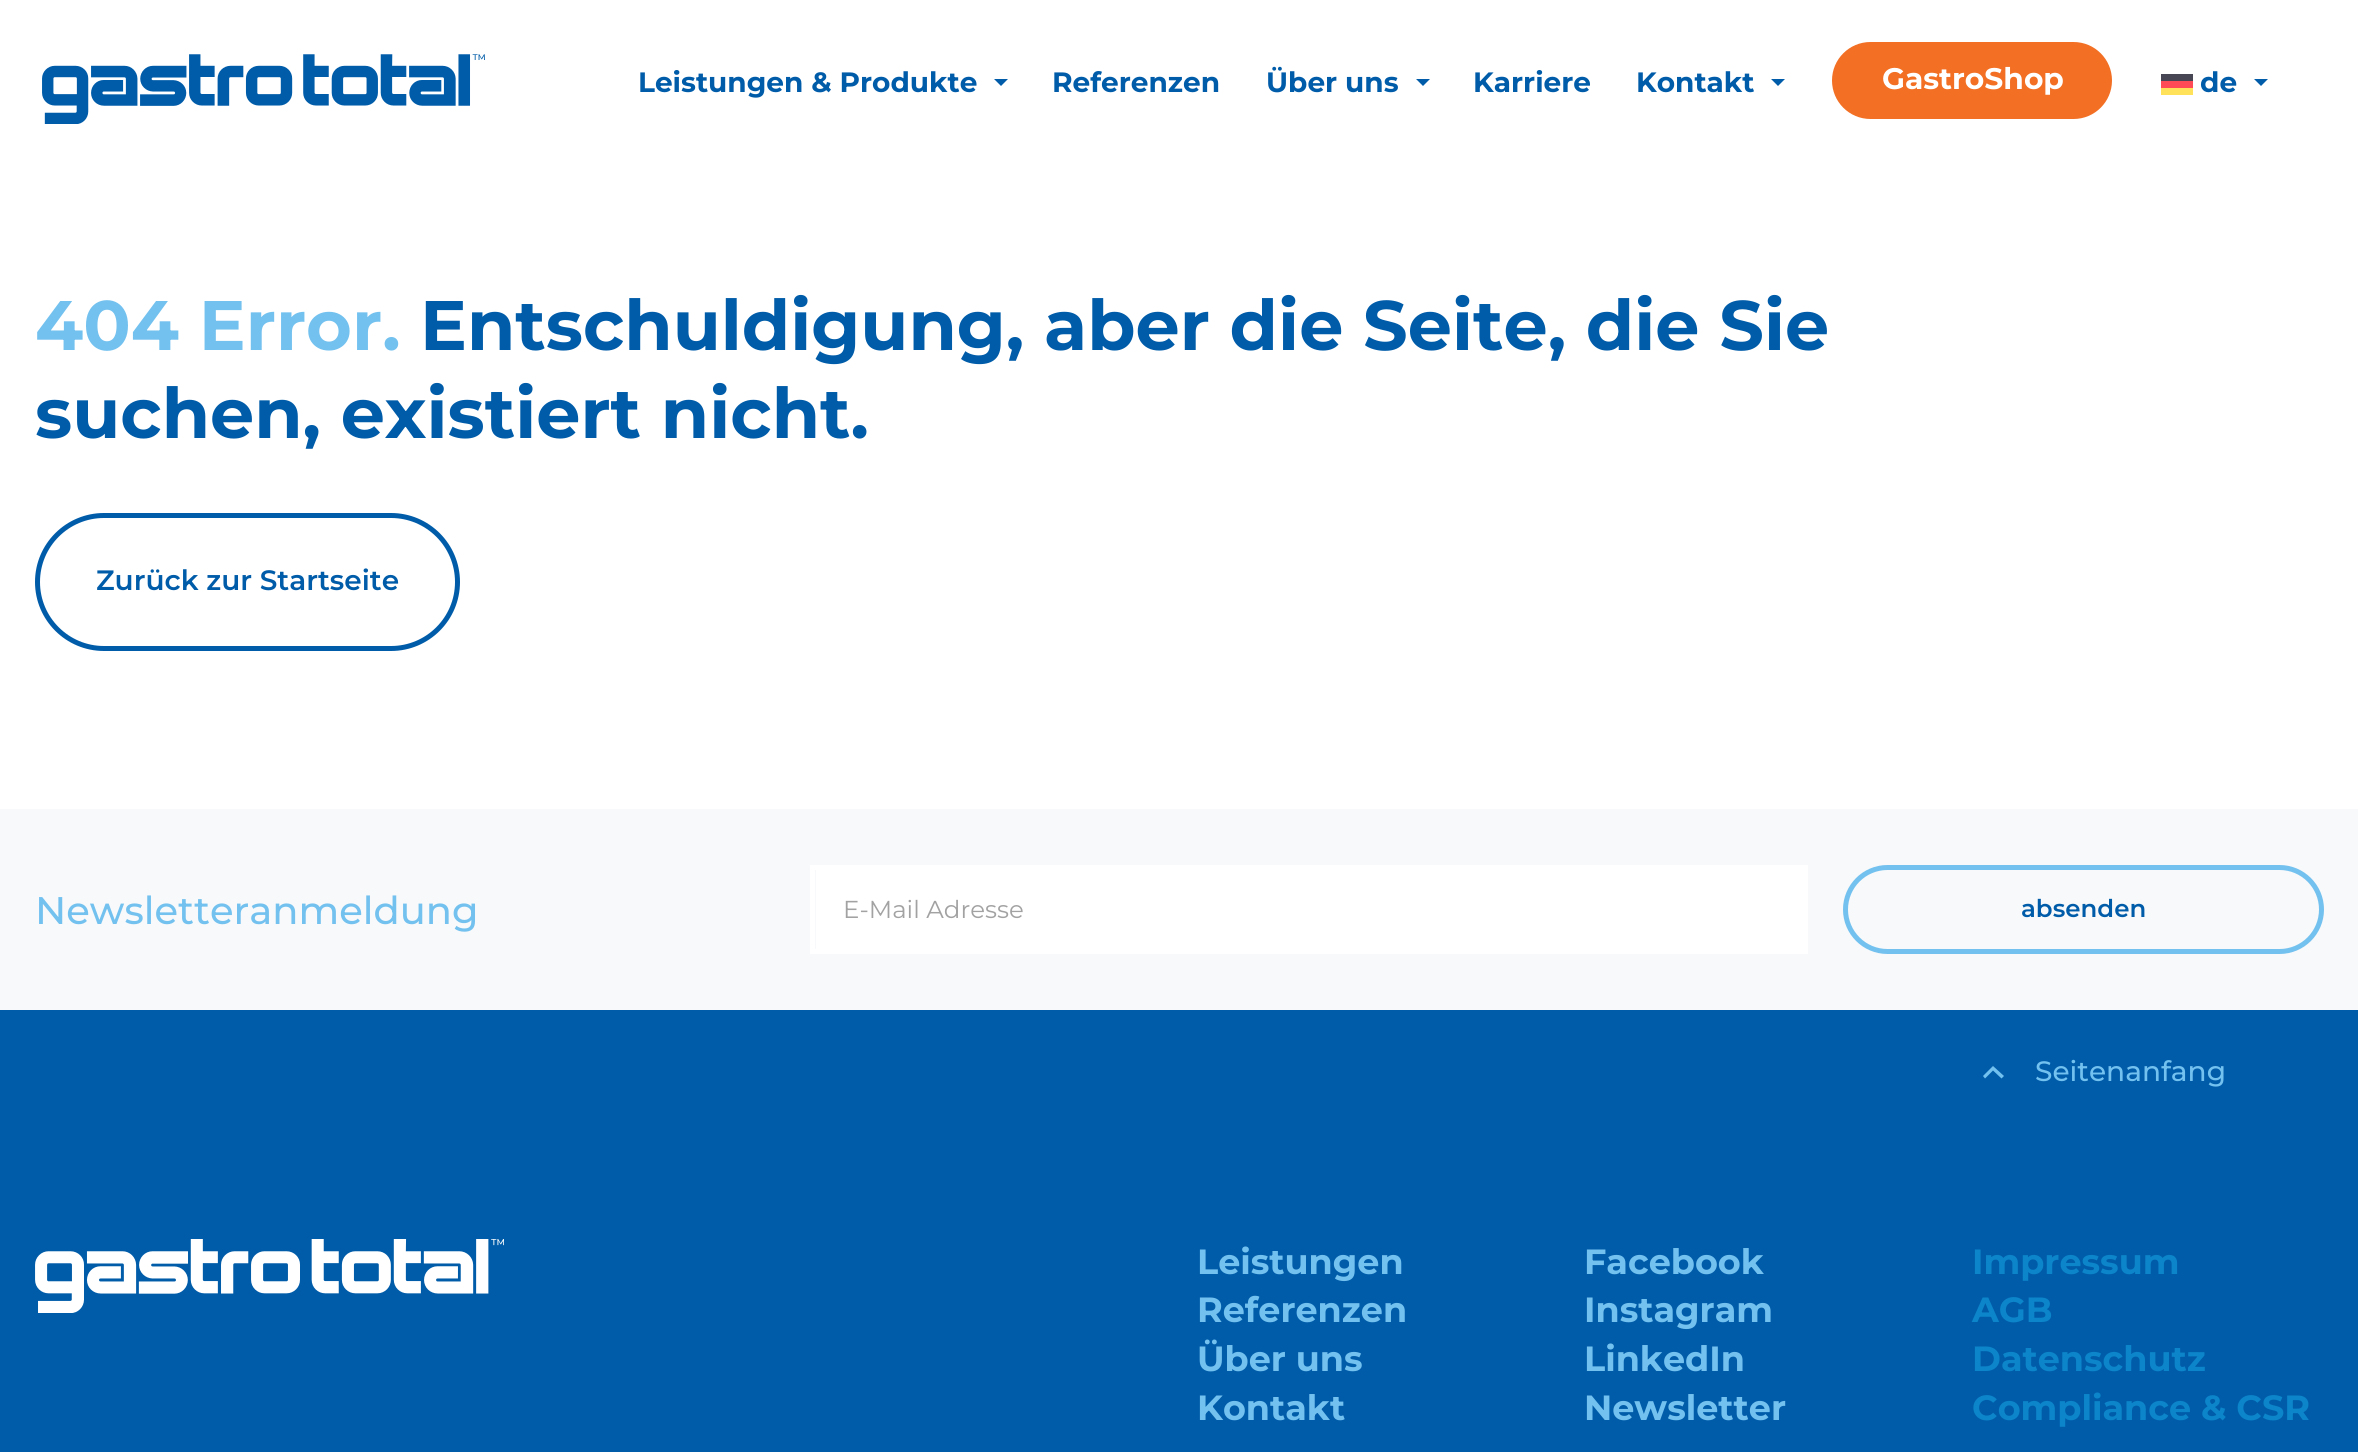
#include <cairo.h>
#include <math.h>
#include <stddef.h>

static cairo_t *c;
static void C(unsigned color){cairo_set_source_rgb(c, (color >> 16) / 255.0, (color >> 8 & 255) / 255.0, (color & 255) / 255.0);}
static void F(const char *family, double size, int italic, int bold){cairo_select_font_face(c, family, italic ? CAIRO_FONT_SLANT_ITALIC : CAIRO_FONT_SLANT_NORMAL,bold ? CAIRO_FONT_WEIGHT_BOLD : CAIRO_FONT_WEIGHT_NORMAL);cairo_set_font_size(c, size);}
static void T(double x, double y, const char *s){cairo_move_to(c, x, y);cairo_show_text(c, s);}
static void R(double x, double y, double w, double h){cairo_rectangle(c, x, y, w, h);cairo_fill(c);}
static void Q(double x, double y, double w, double h, double r){cairo_new_sub_path(c);cairo_arc(c, x + w - r, y + h - r, r, 0, M_PI / 2);cairo_arc(c, x + r, y + h - r, r, M_PI / 2, M_PI);cairo_arc(c, x + r, y + r, r, M_PI, 1.5 * M_PI);cairo_arc(c, x + w - r, y + r, r, 1.5 * M_PI, 2 * M_PI);cairo_close_path(c);}
static void I(const char *path, double x, double y, double w, double h){cairo_surface_t *image = cairo_image_surface_create_from_png(path);cairo_save(c);cairo_set_source_surface(c, image, x, y);cairo_rectangle(c, x, y, w, h);cairo_fill(c);cairo_restore(c);cairo_surface_destroy(image);}
int main(void) {
cairo_surface_t *surface = cairo_image_surface_create(CAIRO_FORMAT_RGB24, 2358, 1452);
c = cairo_create(surface);
cairo_font_options_t *options = cairo_font_options_create();
cairo_font_options_set_hint_metrics(options, CAIRO_HINT_METRICS_OFF);
cairo_font_options_set_hint_style(options, CAIRO_HINT_STYLE_NONE);
cairo_set_font_options(c, options);
cairo_set_miter_limit(c, 4);
C(0xffffff);
cairo_paint(c);
I("1.png",42,54,443,70);
F("Montserrat Thin",28,0,0);
C(0x005ca9);
T(638,92,"Leistungen & Produkte");
cairo_new_path(c);
cairo_move_to(c,994,79);
cairo_line_to(c,1008,79);
cairo_line_to(c,1001,86);
cairo_close_path(c);
cairo_fill(c);
T(1052,92,"Referenzen");
T(1266,92,"Über uns");
cairo_new_path(c);
cairo_move_to(c,1416,79);
cairo_line_to(c,1430,79);
cairo_line_to(c,1423,86);
cairo_close_path(c);
cairo_fill(c);
T(1473,92,"Karriere");
T(1636,92,"Kontakt");
cairo_new_path(c);
cairo_move_to(c,1771,79);
cairo_line_to(c,1785,79);
cairo_line_to(c,1778,86);
cairo_close_path(c);
cairo_fill(c);
C(0xf26f23);
Q(1832,42,280,77,38.5);
cairo_fill(c);
F("Montserrat Thin",29.75,0,0);
C(0xffffff);
T(1882,89,"GastroShop");
C(0x464655);
R(2161,74,32,7);
F("Montserrat Thin",28,0,0);
C(0x005ca9);
T(2200,92,"de");
C(0xff4b55);
R(2161,81,32,7);
C(0x005ca9);
cairo_new_path(c);
cairo_move_to(c,2254,79);
cairo_line_to(c,2268,79);
cairo_line_to(c,2261,86);
cairo_close_path(c);
cairo_fill(c);
C(0xffe15a);
R(2161,88,32,7);
F("Montserrat Thin",70,0,0);
C(0x73c1ef);
T(35,350,"404 Error.");
C(0x005ca9);
T(420,350,"Entschuldigung, aber die Seite, die Sie");
T(35,438,"suchen, existiert nicht.");
Q(37.5,515.5,420,133,66.5);
cairo_set_line_width(c,5);
cairo_stroke(c);
F("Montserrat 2 Thin",28,0,0);
T(96,590,"Zurück zur Startseite");
C(0xf8f9fa);
R(0,809,2358,201);
F("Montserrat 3 Thin",38.5,0,0);
C(0x73c1ef);
T(35,924,"Newsletteranmeldung");
C(0xffffff);
R(816,870,987,79);
cairo_rectangle(c,812.5,867.5,993,84);
cairo_stroke(c);
F("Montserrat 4 Thin",24.5,0,0);
C(0xa2a2a2);
T(843,918,"E-Mail Adresse");
Q(1845.5,867.5,476,84,42);
C(0x73c1ef);
cairo_stroke(c);
F("Montserrat 2 Thin",24.5,0,0);
C(0x005ca9);
T(2021,917,"absenden");
R(0,1010,2358,442);
C(0x73c1ef);
cairo_new_path(c);
cairo_move_to(c,1985,1078.5);
cairo_line_to(c,1993,1070.5);
cairo_line_to(c,2001.5,1078.5);
cairo_line_to(c,2004,1076);
cairo_line_to(c,1993,1066);
cairo_line_to(c,1983,1076);
cairo_close_path(c);
cairo_fill(c);
F("Montserrat 3 Thin",28,0,0);
T(2035,1081,"Seitenanfang");
I("2.png",35,1239,469,74);
F("Montserrat Thin",35,0,0);
T(1197,1274,"Leistungen");
T(1197,1322,"Referenzen");
T(1197,1371,"Über uns");
T(1197,1420,"Kontakt");
T(1584,1274,"Facebook");
T(1584,1322,"Instagram");
T(1584,1371,"LinkedIn");
T(1584,1420,"Newsletter");
C(0x0c85ca);
T(1972,1274,"Impressum");
T(1972,1322,"AGB");
T(1972,1371,"Datenschutz");
T(1972,1420,"Compliance & CSR");
cairo_surface_write_to_png(surface, "o.png");
cairo_font_options_destroy(options);
cairo_destroy(c);
cairo_surface_destroy(surface);
return 0;
}
